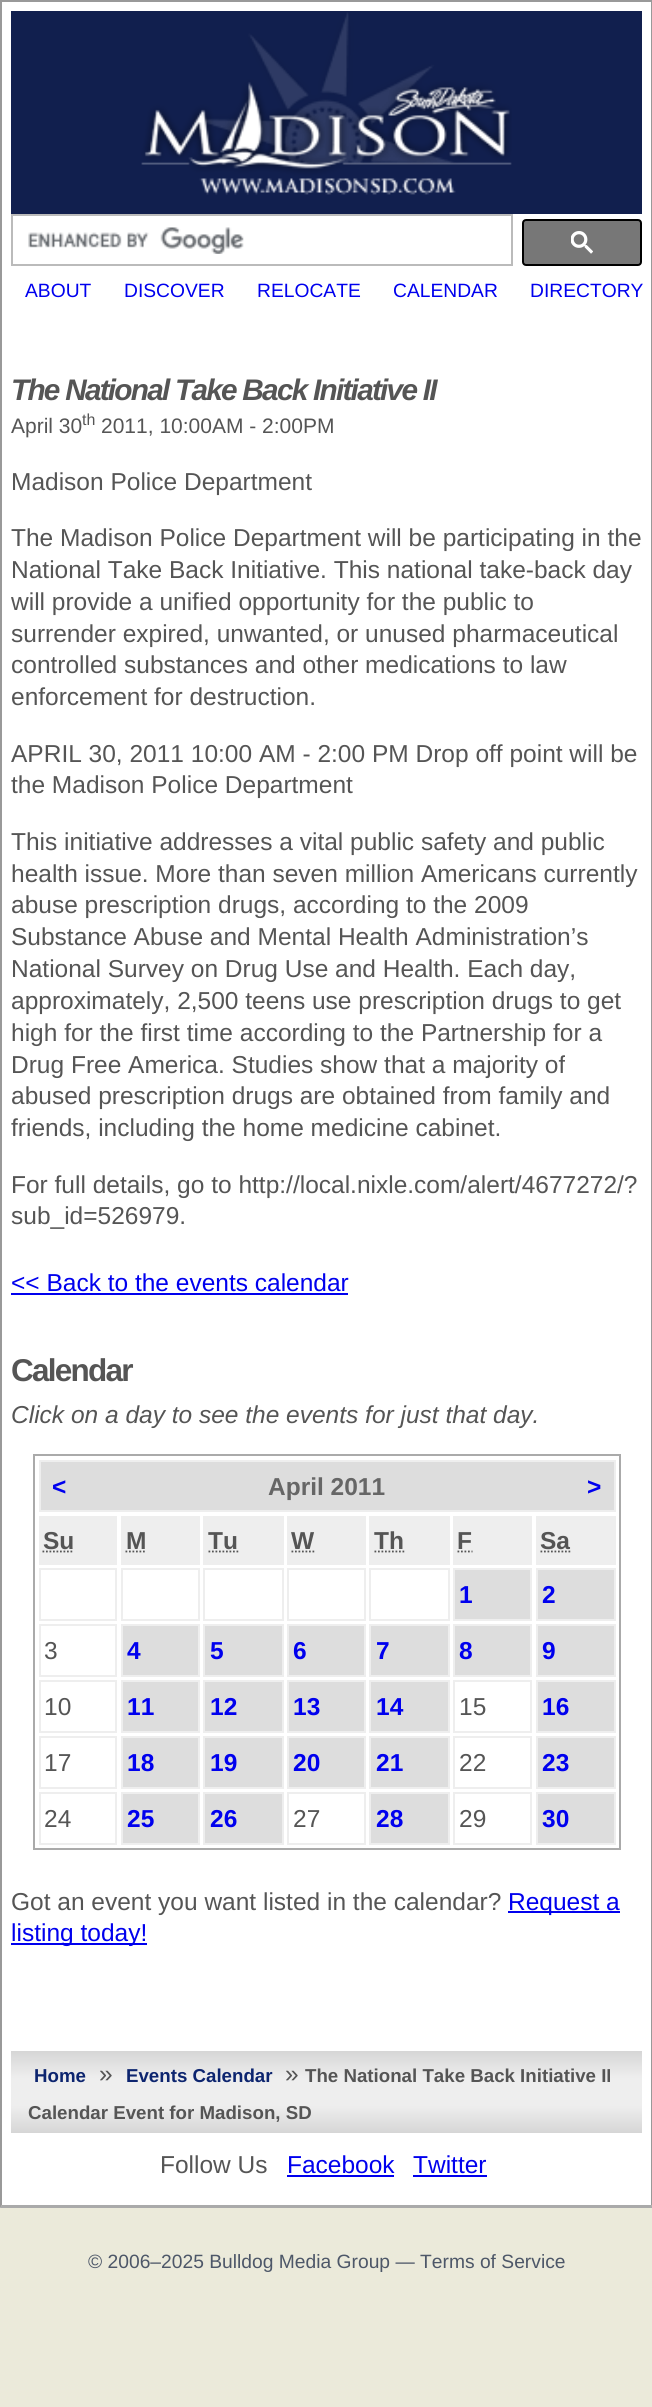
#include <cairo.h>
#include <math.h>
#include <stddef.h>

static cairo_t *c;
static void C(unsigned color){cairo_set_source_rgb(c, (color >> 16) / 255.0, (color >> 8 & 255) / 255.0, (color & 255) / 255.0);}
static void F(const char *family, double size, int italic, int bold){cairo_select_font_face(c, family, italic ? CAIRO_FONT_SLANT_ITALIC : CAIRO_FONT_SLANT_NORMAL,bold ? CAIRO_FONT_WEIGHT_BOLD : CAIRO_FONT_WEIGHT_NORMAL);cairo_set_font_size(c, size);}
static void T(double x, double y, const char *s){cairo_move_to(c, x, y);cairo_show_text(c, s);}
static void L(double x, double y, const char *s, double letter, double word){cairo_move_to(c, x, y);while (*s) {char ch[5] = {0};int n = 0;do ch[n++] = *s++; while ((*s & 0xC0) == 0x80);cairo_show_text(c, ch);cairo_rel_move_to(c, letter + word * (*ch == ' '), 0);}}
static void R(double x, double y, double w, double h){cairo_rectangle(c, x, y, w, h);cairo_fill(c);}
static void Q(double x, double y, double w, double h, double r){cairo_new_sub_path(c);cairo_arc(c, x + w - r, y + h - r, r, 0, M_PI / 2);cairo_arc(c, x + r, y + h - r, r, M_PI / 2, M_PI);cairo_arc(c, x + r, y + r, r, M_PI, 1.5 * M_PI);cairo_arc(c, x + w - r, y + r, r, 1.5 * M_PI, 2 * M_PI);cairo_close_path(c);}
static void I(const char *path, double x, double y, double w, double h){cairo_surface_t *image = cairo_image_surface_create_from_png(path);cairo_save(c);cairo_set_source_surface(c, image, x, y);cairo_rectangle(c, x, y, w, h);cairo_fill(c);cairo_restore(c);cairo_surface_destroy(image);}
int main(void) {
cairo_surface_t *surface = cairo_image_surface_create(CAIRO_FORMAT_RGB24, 652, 2407);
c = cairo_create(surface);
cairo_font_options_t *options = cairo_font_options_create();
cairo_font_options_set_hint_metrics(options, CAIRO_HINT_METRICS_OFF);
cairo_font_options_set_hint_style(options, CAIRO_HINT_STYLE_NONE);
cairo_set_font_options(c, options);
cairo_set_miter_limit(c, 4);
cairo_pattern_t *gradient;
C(0xebeada);
cairo_paint(c);
C(0xffffff);
R(2,2,649,2203);
C(0x999999);
R(0,0,652,2);
cairo_new_path(c);
cairo_move_to(c,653,0);
cairo_line_to(c,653,2208);
cairo_line_to(c,651,2205);
cairo_line_to(c,651,2);
cairo_close_path(c);
cairo_fill(c);
C(0xaaaaaa);
cairo_new_path(c);
cairo_move_to(c,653,2208);
cairo_line_to(c,0,2208);
cairo_line_to(c,2,2205);
cairo_line_to(c,651,2205);
cairo_close_path(c);
cairo_fill(c);
C(0x999999);
cairo_new_path(c);
cairo_move_to(c,0,2208);
cairo_line_to(c,0,0);
cairo_line_to(c,2,2);
cairo_line_to(c,2,2205);
cairo_close_path(c);
cairo_fill(c);
C(0x111f4e);
R(11,11,631,203);
I("1.png",141,12,371,183);
cairo_rectangle(c,12,215,500,50);
C(0xbbbbbb);
cairo_stroke(c);
I("2.png",28,227,216,27);
C(0x777777);
Q(523,220,118,45,3);
cairo_fill_preserve(c);
C(0x000000);
cairo_stroke(c);
I("3.png",571,231,22,23);
F("Liberation Sans",19.25,0,0);
C(0x0000ee);
T(25,297,"ABOUT");
T(124,297,"DISCOVER");
T(257,297,"RELOCATE");
T(393,297,"CALENDAR");
T(530,297,"DIRECTORY");
F("Liberation Sans",29.75,1,1);
C(0x555555);
L(11,400,"The National Take Back Initiative II",-1.75,0);
F("Liberation Sans",21,0,0);
T(11,433,"April 30");
F("Liberation Sans",16,0,0);
T(82,425,"th");
F("Liberation Sans",21,0,0);
T(101,433,"2011, 10:00AM - 2:00PM");
F("Liberation Sans",24.5,0,0);
T(11,490,"Madison Police Department");
T(11,546,"The Madison Police Department will be participating in the");
T(11,578,"National Take Back Initiative. This national take-back day");
T(11,610,"will provide a unified opportunity for the public to");
T(11,642,"surrender expired, unwanted, or unused pharmaceutical");
T(11,673,"controlled substances and other medications to law");
T(11,705,"enforcement for destruction.");
T(11,762,"APRIL 30, 2011 10:00 AM - 2:00 PM Drop off point will be");
T(11,793,"the Madison Police Department");
T(11,850,"This initiative addresses a vital public safety and public");
T(11,882,"health issue. More than seven million Americans currently");
T(11,913,"abuse prescription drugs, according to the 2009");
T(11,945,"Substance Abuse and Mental Health Administration’s");
T(11,977,"National Survey on Drug Use and Health. Each day,");
T(11,1009,"approximately, 2,500 teens use prescription drugs to get");
T(11,1041,"high for the first time according to the Partnership for a");
T(11,1073,"Drug Free America. Studies show that a majority of");
T(11,1104,"abused prescription drugs are obtained from family and");
T(11,1136,"friends, including the home medicine cabinet.");
T(11,1193,"For full details, go to http://local.nixle.com/alert/4677272/?");
T(11,1224,"sub_id=526979.");
C(0x0000ee);
T(11,1291,"<< Back to the events calendar");
R(11,1293,337,2);
F("Liberation Sans",31.5,0,1);
C(0x555555);
L(11,1381,"Calendar",-1.75,0);
F("Liberation Sans",24.5,1,0);
T(11,1423,"Click on a day to see the events for just that day.");
cairo_rectangle(c,34,1455,586,394);
C(0xaaaaaa);
cairo_stroke(c);
C(0xdddddd);
cairo_rectangle(c,40,1461,575,50);
cairo_fill_preserve(c);
C(0xeeeeee);
cairo_stroke(c);
F("Liberation Sans",24.5,0,1);
C(0x0000ee);
T(52,1495,"<");
C(0x666666);
T(268,1495,"April 2011");
C(0x0000ee);
T(587,1495,">");
C(0xeeeeee);
R(39,1516,78,49);
C(0x555555);
T(43,1549,"Su");
cairo_new_path(c);
cairo_move_to(c,42.5,1551.5);
cairo_line_to(c,74,1551.5);
cairo_set_line_width(c,1.8);
cairo_set_dash(c,(double[]){1.75,1.75},2,0);
cairo_stroke(c);
C(0xeeeeee);
R(121,1516,79,49);
C(0x555555);
T(126,1549,"M");
cairo_new_path(c);
cairo_move_to(c,125.5,1551.5);
cairo_line_to(c,146,1551.5);
cairo_stroke(c);
C(0xeeeeee);
R(203,1516,81,49);
C(0x555555);
T(208,1549,"Tu");
cairo_new_path(c);
cairo_move_to(c,208.5,1551.5);
cairo_line_to(c,238.5,1551.5);
cairo_stroke(c);
C(0xeeeeee);
R(287,1516,79,49);
C(0x555555);
T(291,1549,"W");
cairo_new_path(c);
cairo_move_to(c,291.5,1551.5);
cairo_line_to(c,314.5,1551.5);
cairo_stroke(c);
C(0xeeeeee);
R(369,1516,81,49);
C(0x555555);
T(374,1549,"Th");
cairo_new_path(c);
cairo_move_to(c,374.5,1551.5);
cairo_line_to(c,404.5,1551.5);
cairo_stroke(c);
C(0xeeeeee);
R(453,1516,79,49);
C(0x555555);
T(457,1549,"F");
cairo_new_path(c);
cairo_move_to(c,457.5,1551.5);
cairo_line_to(c,472.5,1551.5);
cairo_stroke(c);
C(0xeeeeee);
R(536,1516,80,49);
C(0x555555);
T(540,1549,"Sa");
cairo_new_path(c);
cairo_move_to(c,540.5,1551.5);
cairo_line_to(c,570.5,1551.5);
cairo_stroke(c);
cairo_rectangle(c,40,1569,76,51);
C(0xeeeeee);
cairo_set_line_width(c,2);
cairo_set_dash(c,NULL,0,0);
cairo_stroke(c);
cairo_rectangle(c,122,1569,77,51);
cairo_stroke(c);
cairo_rectangle(c,204,1569,79,51);
cairo_stroke(c);
cairo_rectangle(c,288,1569,77,51);
cairo_stroke(c);
cairo_rectangle(c,370,1569,79,51);
cairo_stroke(c);
C(0xdddddd);
cairo_rectangle(c,454,1569,77,51);
cairo_fill_preserve(c);
C(0xeeeeee);
cairo_stroke(c);
C(0x0000ee);
T(459,1603,"1");
C(0xdddddd);
cairo_rectangle(c,537,1569,78,51);
cairo_fill_preserve(c);
C(0xeeeeee);
cairo_stroke(c);
C(0x0000ee);
T(542,1603,"2");
cairo_rectangle(c,40,1625,76,51);
C(0xeeeeee);
cairo_stroke(c);
F("Liberation Sans",24.5,0,0);
C(0x555555);
T(44,1659,"3");
C(0xdddddd);
cairo_rectangle(c,122,1625,77,51);
cairo_fill_preserve(c);
C(0xeeeeee);
cairo_stroke(c);
F("Liberation Sans",24.5,0,1);
C(0x0000ee);
T(127,1659,"4");
C(0xdddddd);
cairo_rectangle(c,204,1625,79,51);
cairo_fill_preserve(c);
C(0xeeeeee);
cairo_stroke(c);
C(0x0000ee);
T(210,1659,"5");
C(0xdddddd);
cairo_rectangle(c,288,1625,77,51);
cairo_fill_preserve(c);
C(0xeeeeee);
cairo_stroke(c);
C(0x0000ee);
T(293,1659,"6");
C(0xdddddd);
cairo_rectangle(c,370,1625,79,51);
cairo_fill_preserve(c);
C(0xeeeeee);
cairo_stroke(c);
C(0x0000ee);
T(376,1659,"7");
C(0xdddddd);
cairo_rectangle(c,454,1625,77,51);
cairo_fill_preserve(c);
C(0xeeeeee);
cairo_stroke(c);
C(0x0000ee);
T(459,1659,"8");
C(0xdddddd);
cairo_rectangle(c,537,1625,78,51);
cairo_fill_preserve(c);
C(0xeeeeee);
cairo_stroke(c);
C(0x0000ee);
T(542,1659,"9");
cairo_rectangle(c,40,1681,76,51);
C(0xeeeeee);
cairo_stroke(c);
F("Liberation Sans",24.5,0,0);
C(0x555555);
T(44,1715,"10");
C(0xdddddd);
cairo_rectangle(c,122,1681,77,51);
cairo_fill_preserve(c);
C(0xeeeeee);
cairo_stroke(c);
F("Liberation Sans",24.5,0,1);
C(0x0000ee);
T(127,1715,"11");
C(0xdddddd);
cairo_rectangle(c,204,1681,79,51);
cairo_fill_preserve(c);
C(0xeeeeee);
cairo_stroke(c);
C(0x0000ee);
T(210,1715,"12");
C(0xdddddd);
cairo_rectangle(c,288,1681,77,51);
cairo_fill_preserve(c);
C(0xeeeeee);
cairo_stroke(c);
C(0x0000ee);
T(293,1715,"13");
C(0xdddddd);
cairo_rectangle(c,370,1681,79,51);
cairo_fill_preserve(c);
C(0xeeeeee);
cairo_stroke(c);
C(0x0000ee);
T(376,1715,"14");
cairo_rectangle(c,454,1681,77,51);
C(0xeeeeee);
cairo_stroke(c);
F("Liberation Sans",24.5,0,0);
C(0x555555);
T(459,1715,"15");
C(0xdddddd);
cairo_rectangle(c,537,1681,78,51);
cairo_fill_preserve(c);
C(0xeeeeee);
cairo_stroke(c);
F("Liberation Sans",24.5,0,1);
C(0x0000ee);
T(542,1715,"16");
cairo_rectangle(c,40,1737,76,51);
C(0xeeeeee);
cairo_stroke(c);
F("Liberation Sans",24.5,0,0);
C(0x555555);
T(44,1771,"17");
C(0xdddddd);
cairo_rectangle(c,122,1737,77,51);
cairo_fill_preserve(c);
C(0xeeeeee);
cairo_stroke(c);
F("Liberation Sans",24.5,0,1);
C(0x0000ee);
T(127,1771,"18");
C(0xdddddd);
cairo_rectangle(c,204,1737,79,51);
cairo_fill_preserve(c);
C(0xeeeeee);
cairo_stroke(c);
C(0x0000ee);
T(210,1771,"19");
C(0xdddddd);
cairo_rectangle(c,288,1737,77,51);
cairo_fill_preserve(c);
C(0xeeeeee);
cairo_stroke(c);
C(0x0000ee);
T(293,1771,"20");
C(0xdddddd);
cairo_rectangle(c,370,1737,79,51);
cairo_fill_preserve(c);
C(0xeeeeee);
cairo_stroke(c);
C(0x0000ee);
T(376,1771,"21");
cairo_rectangle(c,454,1737,77,51);
C(0xeeeeee);
cairo_stroke(c);
F("Liberation Sans",24.5,0,0);
C(0x555555);
T(459,1771,"22");
C(0xdddddd);
cairo_rectangle(c,537,1737,78,51);
cairo_fill_preserve(c);
C(0xeeeeee);
cairo_stroke(c);
F("Liberation Sans",24.5,0,1);
C(0x0000ee);
T(542,1771,"23");
cairo_rectangle(c,40,1793,76,51);
C(0xeeeeee);
cairo_stroke(c);
F("Liberation Sans",24.5,0,0);
C(0x555555);
T(44,1827,"24");
C(0xdddddd);
cairo_rectangle(c,122,1793,77,51);
cairo_fill_preserve(c);
C(0xeeeeee);
cairo_stroke(c);
F("Liberation Sans",24.5,0,1);
C(0x0000ee);
T(127,1827,"25");
C(0xdddddd);
cairo_rectangle(c,204,1793,79,51);
cairo_fill_preserve(c);
C(0xeeeeee);
cairo_stroke(c);
C(0x0000ee);
T(210,1827,"26");
cairo_rectangle(c,288,1793,77,51);
C(0xeeeeee);
cairo_stroke(c);
F("Liberation Sans",24.5,0,0);
C(0x555555);
T(293,1827,"27");
C(0xdddddd);
cairo_rectangle(c,370,1793,79,51);
cairo_fill_preserve(c);
C(0xeeeeee);
cairo_stroke(c);
F("Liberation Sans",24.5,0,1);
C(0x0000ee);
T(376,1827,"28");
cairo_rectangle(c,454,1793,77,51);
C(0xeeeeee);
cairo_stroke(c);
F("Liberation Sans",24.5,0,0);
C(0x555555);
T(459,1827,"29");
C(0xdddddd);
cairo_rectangle(c,537,1793,78,51);
cairo_fill_preserve(c);
C(0xeeeeee);
cairo_stroke(c);
F("Liberation Sans",24.5,0,1);
C(0x0000ee);
T(542,1827,"30");
F("Liberation Sans",24.5,0,0);
C(0x555555);
T(11,1910,"Got an event you want listed in the calendar?");
C(0x0000ee);
R(508,1911,112,2);
T(508,1910,"Request a");
R(11,1943,136,2);
T(11,1941,"listing today!");
gradient = cairo_pattern_create_linear(326,2051,326,2133);
cairo_pattern_add_color_stop_rgba(gradient,0,0.839,0.839,0.839,1);
cairo_pattern_add_color_stop_rgba(gradient,.33,0.933,0.933,0.933,1);
cairo_pattern_add_color_stop_rgba(gradient,.67,0.933,0.933,0.933,1);
cairo_pattern_add_color_stop_rgba(gradient,1,0.839,0.839,0.839,1);
cairo_set_source(c,gradient);
cairo_pattern_destroy(gradient);
R(11,2051,631,82);
F("Liberation Sans",18.7,0,1);
C(0x0d256f);
T(34,2082,"Home");
F("Liberation Sans",24.5,0,0);
C(0x555555);
T(99,2082,"»");
F("Liberation Sans",18.7,0,1);
C(0x0d256f);
T(126,2082,"Events Calendar");
F("Liberation Sans",24.5,0,0);
C(0x555555);
T(285,2082,"»");
F("Liberation Sans",18.7,0,1);
T(305,2082,"The National Take Back Initiative II");
T(28,2119,"Calendar Event for Madison, SD");
F("Liberation Sans",24.5,0,0);
T(160,2173,"Follow Us");
C(0x0000ee);
T(287,2173,"Facebook");
R(287,2175,107,2);
T(413,2173,"Twitter");
R(413,2175,74,2);
F("Liberation Sans",19.25,0,0);
C(0x4d5768);
T(88,2268,"© 2006–2025 Bulldog Media Group — Terms of Service");
cairo_surface_write_to_png(surface, "o.png");
cairo_font_options_destroy(options);
cairo_destroy(c);
cairo_surface_destroy(surface);
return 0;
}
